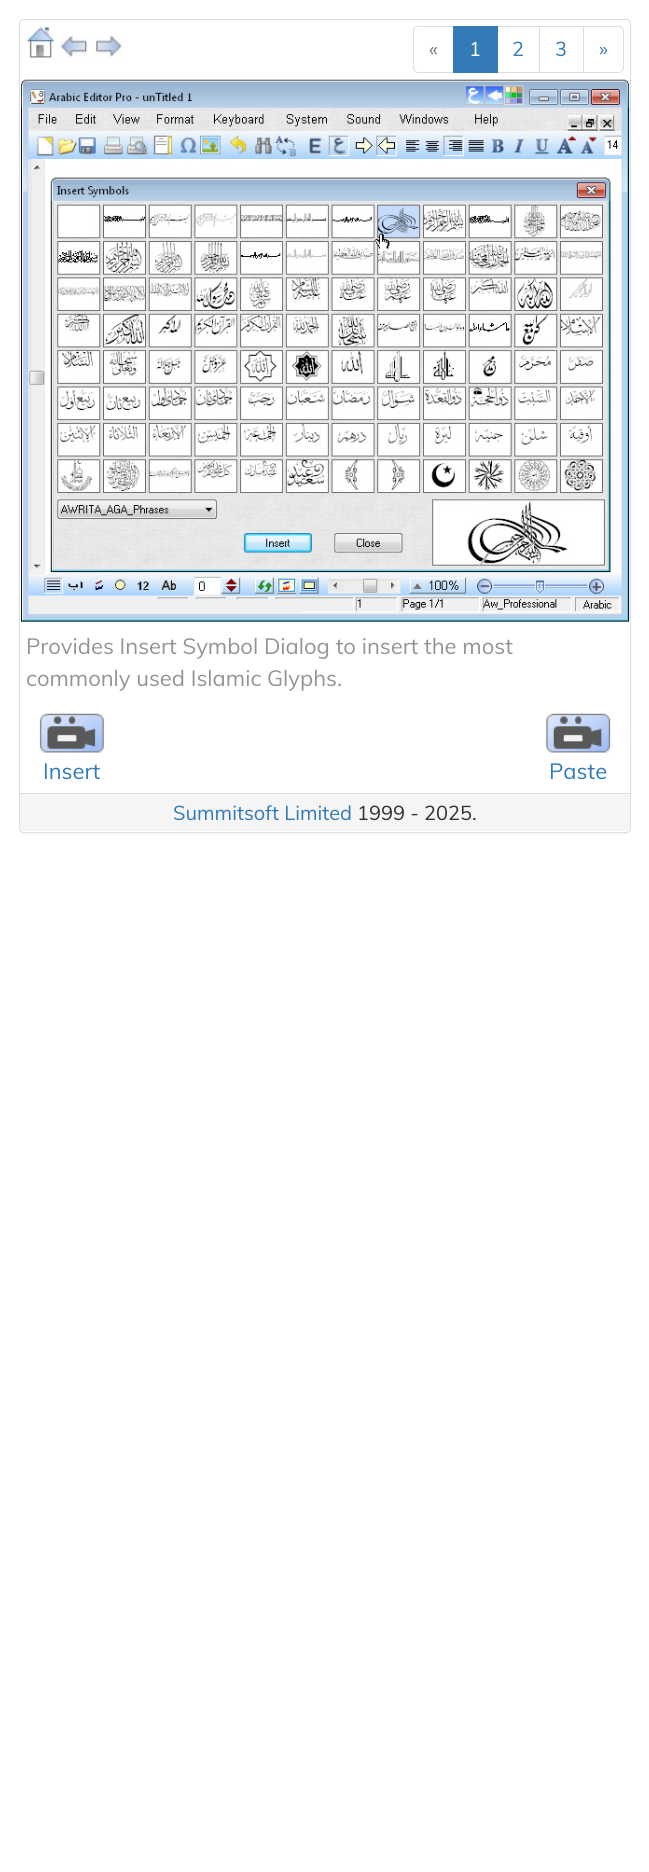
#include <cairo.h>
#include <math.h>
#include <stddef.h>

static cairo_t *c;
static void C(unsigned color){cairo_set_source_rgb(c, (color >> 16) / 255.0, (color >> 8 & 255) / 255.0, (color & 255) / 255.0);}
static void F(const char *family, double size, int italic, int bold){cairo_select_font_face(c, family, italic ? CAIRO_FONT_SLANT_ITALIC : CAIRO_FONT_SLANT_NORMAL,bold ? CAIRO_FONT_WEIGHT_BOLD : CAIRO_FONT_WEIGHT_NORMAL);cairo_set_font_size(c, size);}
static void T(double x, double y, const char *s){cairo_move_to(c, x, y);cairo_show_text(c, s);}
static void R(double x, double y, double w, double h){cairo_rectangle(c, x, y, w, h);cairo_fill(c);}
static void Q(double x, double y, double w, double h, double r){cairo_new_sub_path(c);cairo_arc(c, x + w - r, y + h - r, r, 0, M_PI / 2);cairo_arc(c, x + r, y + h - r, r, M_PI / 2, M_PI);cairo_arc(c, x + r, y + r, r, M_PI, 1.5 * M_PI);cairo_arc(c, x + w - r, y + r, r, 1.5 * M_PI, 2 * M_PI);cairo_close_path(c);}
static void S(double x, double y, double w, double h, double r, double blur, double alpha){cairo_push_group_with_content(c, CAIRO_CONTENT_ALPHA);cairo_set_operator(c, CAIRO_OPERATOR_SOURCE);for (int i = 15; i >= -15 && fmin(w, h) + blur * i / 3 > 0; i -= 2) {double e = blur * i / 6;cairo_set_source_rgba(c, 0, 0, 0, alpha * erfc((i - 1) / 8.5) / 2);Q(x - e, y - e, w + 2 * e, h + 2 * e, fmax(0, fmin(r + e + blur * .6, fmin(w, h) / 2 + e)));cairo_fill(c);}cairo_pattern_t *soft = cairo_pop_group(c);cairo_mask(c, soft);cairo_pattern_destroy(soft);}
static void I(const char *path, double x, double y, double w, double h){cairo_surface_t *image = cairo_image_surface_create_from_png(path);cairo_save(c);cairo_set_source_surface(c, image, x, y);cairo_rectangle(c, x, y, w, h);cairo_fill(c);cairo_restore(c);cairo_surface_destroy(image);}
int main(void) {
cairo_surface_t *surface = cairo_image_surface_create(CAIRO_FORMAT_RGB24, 649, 1872);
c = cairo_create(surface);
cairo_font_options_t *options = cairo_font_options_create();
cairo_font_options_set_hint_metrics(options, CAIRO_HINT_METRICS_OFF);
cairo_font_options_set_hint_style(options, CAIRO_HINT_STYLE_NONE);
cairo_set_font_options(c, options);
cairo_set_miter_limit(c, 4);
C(0xffffff);
cairo_paint(c);
C(0x000000);
S(19,20,612,814,5,.5,.05);
C(0xffffff);
Q(19.5,19.5,611,813,4.5);
cairo_fill_preserve(c);
C(0xdddddd);
cairo_set_line_width(c,1);
cairo_stroke(c);
I("1.png",26,26,29,33);
I("2.png",60,36,28,21);
I("3.png",94,36,29,21);
cairo_new_path(c);
cairo_move_to(c,418,26.5);
cairo_line_to(c,453.5,26.5);
cairo_line_to(c,453.5,72.5);
cairo_line_to(c,418,72.5);
cairo_curve_to(c,415.5,72.5,413.5,70.5,413.5,68);
cairo_line_to(c,413.5,31);
cairo_curve_to(c,413.5,28.5,415.5,26.5,418,26.5);
cairo_close_path(c);
cairo_stroke(c);
F("Mulish",20,0,0);
C(0x777777);
T(429,56,"«");
cairo_rectangle(c,496.5,26.5,43,46);
C(0xdddddd);
cairo_stroke(c);
C(0x337ab7);
R(453,26,45,47);
C(0xffffff);
T(469,56,"1");
C(0x337ab7);
T(512,56,"2");
cairo_rectangle(c,539.5,26.5,44,46);
C(0xdddddd);
cairo_stroke(c);
C(0x337ab7);
T(555,56,"3");
C(0xffffff);
cairo_new_path(c);
cairo_move_to(c,583.5,26.5);
cairo_line_to(c,619,26.5);
cairo_curve_to(c,621.5,26.5,623.5,28.5,623.5,31);
cairo_line_to(c,623.5,68);
cairo_curve_to(c,623.5,70.5,621.5,72.5,619,72.5);
cairo_line_to(c,583.5,72.5);
cairo_close_path(c);
cairo_fill_preserve(c);
C(0xdddddd);
cairo_stroke(c);
C(0x337ab7);
T(599,56,"»");
I("4.png",21,79,609,543);
F("Mulish",22,0,0);
C(0x949494);
T(26,654,"Provides Insert Symbol Dialog to insert the most");
T(26,686,"commonly used Islamic Glyphs.");
I("5.png",39,712,66,41);
C(0x337ab7);
T(43,779,"Insert");
I("6.png",545,712,66,41);
T(549,779,"Paste");
C(0xf5f5f5);
cairo_new_path(c);
cairo_move_to(c,20,793);
cairo_line_to(c,630,793);
cairo_line_to(c,630,827);
cairo_curve_to(c,630,829,628,831,626,831);
cairo_line_to(c,24,831);
cairo_curve_to(c,22,831,20,829,20,827);
cairo_close_path(c);
cairo_fill(c);
C(0xdddddd);
R(20,793,610,1);
F("Mulish",20,0,0);
C(0x337ab7);
T(173,820,"Summitsoft Limited");
C(0x333333);
T(357,820,"1999 - 2025.");
cairo_surface_write_to_png(surface, "o.png");
cairo_font_options_destroy(options);
cairo_destroy(c);
cairo_surface_destroy(surface);
return 0;
}
